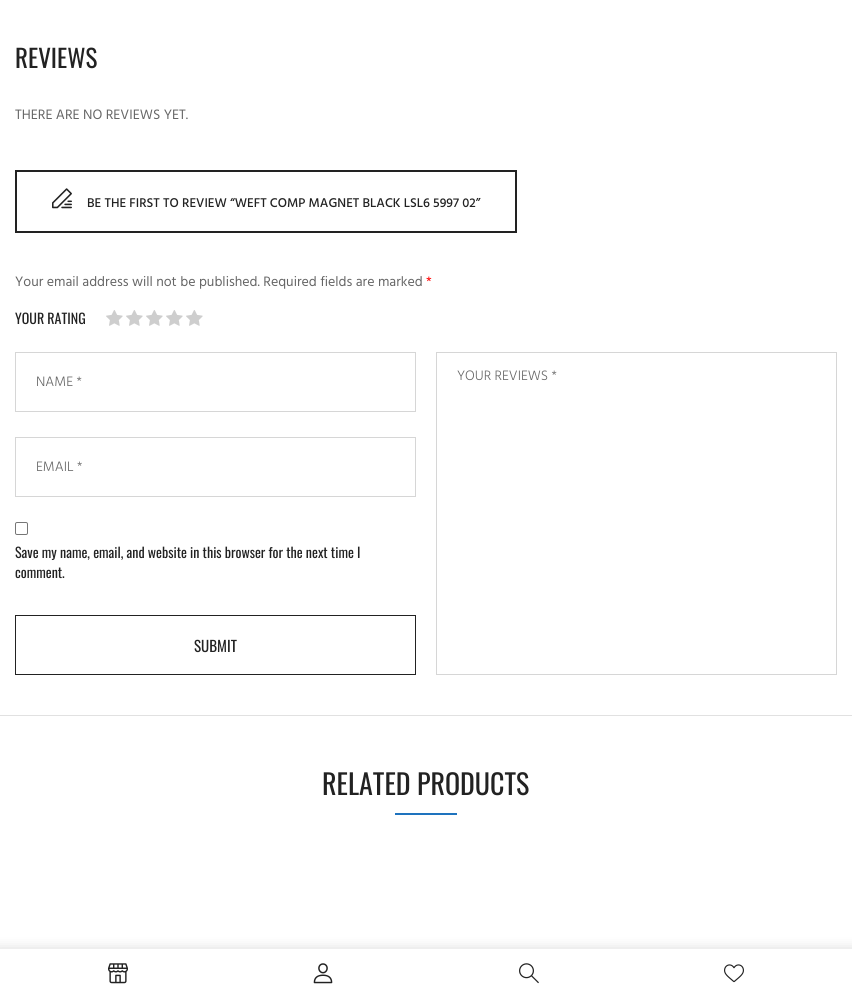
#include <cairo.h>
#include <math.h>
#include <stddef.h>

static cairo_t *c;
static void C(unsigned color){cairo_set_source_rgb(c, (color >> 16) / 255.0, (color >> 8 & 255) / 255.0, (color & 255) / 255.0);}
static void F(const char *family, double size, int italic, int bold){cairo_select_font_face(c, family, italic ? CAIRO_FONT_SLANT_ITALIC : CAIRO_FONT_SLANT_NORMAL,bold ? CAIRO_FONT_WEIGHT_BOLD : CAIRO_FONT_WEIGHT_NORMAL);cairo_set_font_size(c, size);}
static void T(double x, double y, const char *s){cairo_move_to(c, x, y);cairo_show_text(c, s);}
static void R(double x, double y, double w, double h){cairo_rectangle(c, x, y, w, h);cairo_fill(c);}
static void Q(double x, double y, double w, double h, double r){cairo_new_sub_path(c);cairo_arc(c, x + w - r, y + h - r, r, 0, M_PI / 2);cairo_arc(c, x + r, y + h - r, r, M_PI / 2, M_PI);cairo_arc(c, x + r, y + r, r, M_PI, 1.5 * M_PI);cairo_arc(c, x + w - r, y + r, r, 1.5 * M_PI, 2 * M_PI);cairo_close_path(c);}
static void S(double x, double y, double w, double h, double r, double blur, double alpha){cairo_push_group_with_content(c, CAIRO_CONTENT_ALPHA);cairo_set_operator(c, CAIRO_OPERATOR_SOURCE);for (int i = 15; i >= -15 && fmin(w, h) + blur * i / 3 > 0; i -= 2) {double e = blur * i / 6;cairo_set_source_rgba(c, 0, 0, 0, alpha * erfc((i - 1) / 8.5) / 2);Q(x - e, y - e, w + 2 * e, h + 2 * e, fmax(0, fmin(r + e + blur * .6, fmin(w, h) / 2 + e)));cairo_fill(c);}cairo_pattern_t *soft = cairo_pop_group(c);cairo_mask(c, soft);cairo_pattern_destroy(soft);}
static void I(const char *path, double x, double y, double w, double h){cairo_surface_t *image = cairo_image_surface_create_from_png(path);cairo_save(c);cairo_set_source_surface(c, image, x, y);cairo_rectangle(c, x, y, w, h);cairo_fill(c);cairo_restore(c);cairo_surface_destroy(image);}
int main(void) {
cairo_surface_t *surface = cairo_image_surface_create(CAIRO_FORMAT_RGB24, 852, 1000);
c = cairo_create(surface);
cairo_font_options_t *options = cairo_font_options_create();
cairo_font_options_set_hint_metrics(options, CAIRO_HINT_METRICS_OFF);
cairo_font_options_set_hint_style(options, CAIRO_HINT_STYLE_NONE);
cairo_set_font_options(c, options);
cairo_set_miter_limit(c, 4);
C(0xffffff);
cairo_paint(c);
C(0xe1e1e1);
R(0,715,852,1);
F("Oswald",25,0,0);
C(0x222222);
T(15,68,"REVIEWS");
F("Hind",14,0,0);
C(0x666666);
T(15,119,"THERE ARE NO REVIEWS YET.");
cairo_rectangle(c,16,171,500,61);
C(0x222222);
cairo_stroke(c);
I("1.png",52,188,20,21);
F("Hind Medium",13,0,0);
T(87,207,"BE THE FIRST TO REVIEW “WEFT COMP MAGNET BLACK LSL6 5997 02”");
F("Hind",14,0,0);
C(0x666666);
T(15,286,"Your email address will not be published. Required fields are marked");
C(0xff0000);
T(426,286,"*");
F("Oswald",14,0,0);
C(0x222222);
T(15,324,"YOUR RATING");
I("2.png",106,310,17,16);
I("2.png",126,310,17,16);
I("2.png",146,310,17,16);
I("2.png",166,310,17,16);
I("2.png",186,310,17,16);
cairo_rectangle(c,15.5,352.5,400,59);
C(0xd6d6d6);
cairo_set_line_width(c,1);
cairo_stroke(c);
F("Hind Light",14,0,0);
C(0x666666);
T(36,386,"NAME *");
cairo_rectangle(c,15.5,437.5,400,59);
C(0xd6d6d6);
cairo_stroke(c);
C(0x666666);
T(36,471,"EMAIL *");
Q(15.5,522.5,12,12,1.5);
C(0x767676);
cairo_stroke(c);
F("Oswald",14,0,0);
C(0x222222);
T(15,558,"Save my name, email, and website in this browser for the next time I");
T(15,578,"comment.");
cairo_rectangle(c,15.5,615.5,400,59);
cairo_stroke(c);
F("Oswald",15,0,0);
T(194,652,"SUBMIT");
cairo_rectangle(c,436.5,352.5,400,322);
C(0xd6d6d6);
cairo_stroke(c);
F("Hind Light",14,0,0);
C(0x666666);
T(457,380,"YOUR REVIEWS *");
F("Oswald",28,0,0);
C(0x222222);
T(322,795,"RELATED PRODUCTS");
C(0x1e73be);
R(395,813,62,2);
C(0x909090);
S(-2,948,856,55,0,6,.3);
C(0xffffff);
R(0,949,852,51);
I("3.png",108,963,20,21);
I("4.png",313,963,20,21);
I("5.png",519,963,20,21);
I("6.png",724,964,20,19);
cairo_surface_write_to_png(surface, "o.png");
cairo_font_options_destroy(options);
cairo_destroy(c);
cairo_surface_destroy(surface);
return 0;
}
